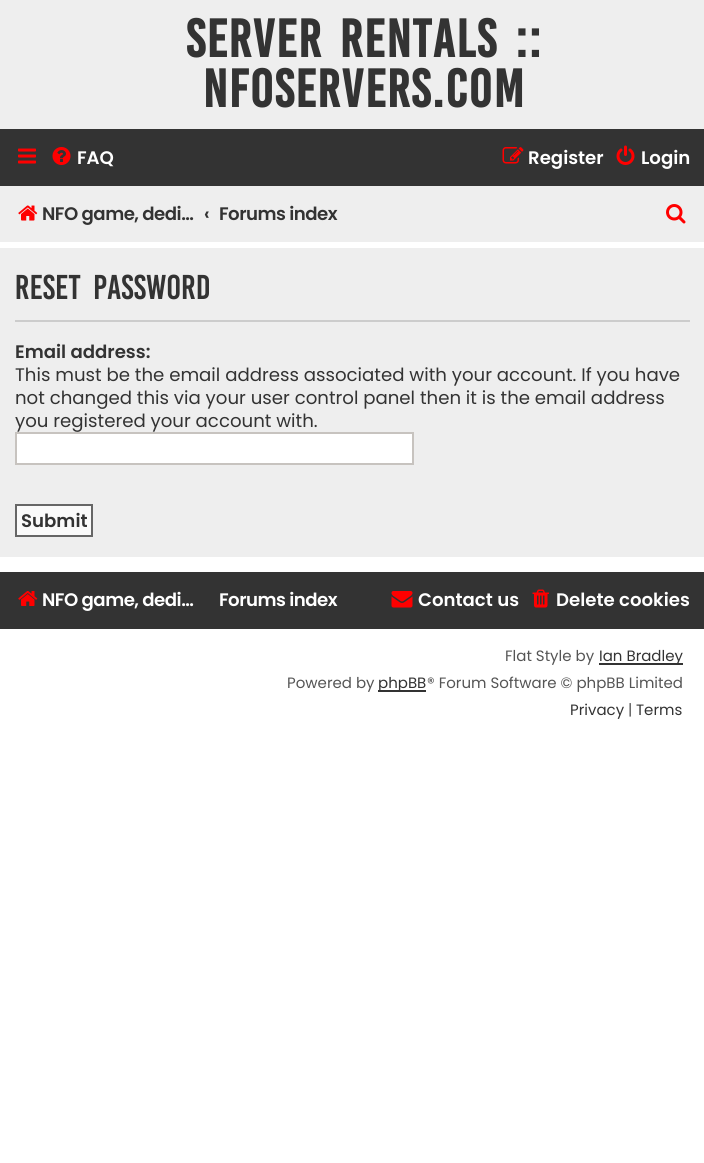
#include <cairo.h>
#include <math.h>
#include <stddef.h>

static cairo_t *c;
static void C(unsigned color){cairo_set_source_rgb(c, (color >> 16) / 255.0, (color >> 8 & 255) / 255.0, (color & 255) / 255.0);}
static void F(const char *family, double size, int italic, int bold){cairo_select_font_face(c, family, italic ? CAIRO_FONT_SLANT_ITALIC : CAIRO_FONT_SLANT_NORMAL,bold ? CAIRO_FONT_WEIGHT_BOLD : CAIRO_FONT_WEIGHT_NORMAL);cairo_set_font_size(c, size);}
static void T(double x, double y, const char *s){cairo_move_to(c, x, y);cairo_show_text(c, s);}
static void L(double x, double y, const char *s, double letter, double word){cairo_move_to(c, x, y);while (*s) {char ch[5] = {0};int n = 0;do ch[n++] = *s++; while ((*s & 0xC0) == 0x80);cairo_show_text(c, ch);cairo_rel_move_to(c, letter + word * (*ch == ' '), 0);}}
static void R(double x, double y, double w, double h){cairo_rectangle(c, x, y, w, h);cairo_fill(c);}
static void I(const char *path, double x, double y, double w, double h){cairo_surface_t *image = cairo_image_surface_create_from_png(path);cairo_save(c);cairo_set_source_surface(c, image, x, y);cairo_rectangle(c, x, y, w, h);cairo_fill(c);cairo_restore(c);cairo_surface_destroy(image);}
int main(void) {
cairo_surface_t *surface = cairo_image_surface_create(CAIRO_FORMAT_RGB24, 704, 1163);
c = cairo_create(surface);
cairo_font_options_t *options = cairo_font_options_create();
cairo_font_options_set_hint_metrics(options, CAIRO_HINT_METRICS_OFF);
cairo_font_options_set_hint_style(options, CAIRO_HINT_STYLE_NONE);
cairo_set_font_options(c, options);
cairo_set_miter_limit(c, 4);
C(0xffffff);
cairo_paint(c);
C(0xeeeeee);
R(0,0,704,129);
F("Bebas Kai",41.25,0,1);
C(0x333333);
L(186,57,"Server rentals ::",1.5,6);
L(203,107,"NFOservers.com",1.5,0);
R(0,129,704,57);
I("1.png",18,148,18,16);
I("2.png",52,147,19,18);
F("Poppins SemiBold",18.15,0,0);
C(0xffffff);
T(77,164,"FAQ");
I("3.png",502,147,22,17);
T(528,164,"Register");
I("4.png",616,145,19,20);
T(641,164,"Login");
C(0xeeeeee);
R(0,186,704,56);
I("5.png",18,205,20,16);
C(0x333333);
L(42,220,"NFO game, dedi…",-.5,0);
T(204,220,"‹");
L(219,220,"Forums index",-.5,0);
I("6.png",666,204,20,20);
C(0xeeeeee);
R(0,248,704,309);
C(0xcccccc);
R(15,320,675,2);
F("Bebas Kai",26.5,0,0);
C(0x333333);
L(15,299,"Reset password",0,6);
F("Poppins SemiBold",18.15,0,0);
T(15,358,"Email address:");
F("Poppins",18.15,0,0);
T(15,381,"This must be the email address associated with your account. If you have");
T(15,404,"not changed this via your user control panel then it is the email address");
T(15,427,"you registered your account with.");
C(0xffffff);
cairo_rectangle(c,16,433,397,31);
cairo_fill_preserve(c);
C(0xc7c3bf);
cairo_stroke(c);
C(0xfafafa);
cairo_rectangle(c,16,505,76,31);
cairo_fill_preserve(c);
C(0x666666);
cairo_stroke(c);
F("Poppins SemiBold",18.15,0,0);
C(0x333333);
T(21,527,"Submit");
R(0,572,704,57);
I("7.png",18,591,20,15);
C(0xffffff);
L(42,606,"NFO game, dedi…",-.5,0);
L(219,606,"Forums index",-.5,0);
I("8.png",391,591,22,17);
T(418,606,"Contact us");
I("9.png",532,589,17,19);
T(556,606,"Delete cookies");
F("Poppins",15,0,0);
C(0x555555);
T(505,661,"Flat Style by");
C(0x333333);
R(599,663,84,2);
T(599,661,"Ian Bradley");
C(0x555555);
T(287,688,"Powered by");
C(0x333333);
R(378,690,48,2);
T(378,688,"phpBB");
C(0x555555);
T(427,688,"® Forum Software © phpBB Limited");
C(0x333333);
T(570,715,"Privacy");
C(0x555555);
T(628,715,"|");
C(0x333333);
T(636,715,"Terms");
cairo_surface_write_to_png(surface, "o.png");
cairo_font_options_destroy(options);
cairo_destroy(c);
cairo_surface_destroy(surface);
return 0;
}
